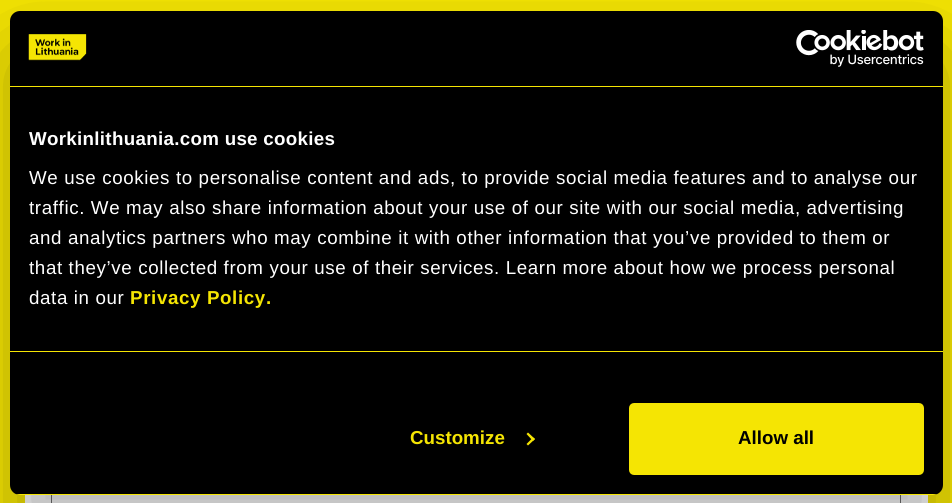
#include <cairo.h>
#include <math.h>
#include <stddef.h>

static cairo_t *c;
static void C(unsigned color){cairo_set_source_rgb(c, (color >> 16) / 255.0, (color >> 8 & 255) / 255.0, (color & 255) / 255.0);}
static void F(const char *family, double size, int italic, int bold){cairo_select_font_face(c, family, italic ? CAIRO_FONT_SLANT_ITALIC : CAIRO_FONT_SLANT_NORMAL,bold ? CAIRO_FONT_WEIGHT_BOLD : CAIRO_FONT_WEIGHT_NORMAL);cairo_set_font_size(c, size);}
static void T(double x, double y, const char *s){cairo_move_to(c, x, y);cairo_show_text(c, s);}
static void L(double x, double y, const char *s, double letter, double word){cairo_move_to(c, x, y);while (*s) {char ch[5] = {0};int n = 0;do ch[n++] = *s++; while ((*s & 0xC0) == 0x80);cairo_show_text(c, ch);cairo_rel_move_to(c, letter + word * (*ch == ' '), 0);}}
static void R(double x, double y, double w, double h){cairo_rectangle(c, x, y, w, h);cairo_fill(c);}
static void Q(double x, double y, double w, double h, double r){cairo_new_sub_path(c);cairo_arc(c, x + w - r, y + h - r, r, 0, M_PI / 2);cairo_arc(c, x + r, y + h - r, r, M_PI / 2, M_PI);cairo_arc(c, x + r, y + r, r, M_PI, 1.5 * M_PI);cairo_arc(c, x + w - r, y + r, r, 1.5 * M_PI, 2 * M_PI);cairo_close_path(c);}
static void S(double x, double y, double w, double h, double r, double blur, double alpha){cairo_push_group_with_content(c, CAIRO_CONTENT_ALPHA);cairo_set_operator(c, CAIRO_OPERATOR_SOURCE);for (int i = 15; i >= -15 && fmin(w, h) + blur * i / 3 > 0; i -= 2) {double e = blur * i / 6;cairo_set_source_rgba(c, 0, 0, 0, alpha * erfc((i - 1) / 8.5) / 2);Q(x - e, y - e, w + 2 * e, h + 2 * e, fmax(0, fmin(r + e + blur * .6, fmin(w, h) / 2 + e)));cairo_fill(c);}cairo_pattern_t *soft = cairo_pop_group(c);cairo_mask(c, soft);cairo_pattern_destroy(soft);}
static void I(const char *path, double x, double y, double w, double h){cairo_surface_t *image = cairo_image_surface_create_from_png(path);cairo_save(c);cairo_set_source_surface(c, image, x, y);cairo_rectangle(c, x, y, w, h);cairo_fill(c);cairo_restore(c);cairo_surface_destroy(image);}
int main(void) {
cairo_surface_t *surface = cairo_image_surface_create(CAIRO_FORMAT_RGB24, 952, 503);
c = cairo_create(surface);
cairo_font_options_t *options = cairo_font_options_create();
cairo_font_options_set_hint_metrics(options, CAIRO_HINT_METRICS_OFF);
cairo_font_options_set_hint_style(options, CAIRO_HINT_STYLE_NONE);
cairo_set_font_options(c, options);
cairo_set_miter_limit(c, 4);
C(0xf5e503);
cairo_paint(c);
C(0xffffff);
R(25,495,903,8);
cairo_rectangle(c,51.5,443.5,849,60);
C(0x707070);
cairo_set_line_width(c,1);
cairo_stroke(c);
C(0x000000);
S(10,51,933,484,10,42.5,.3);
C(0x000000);
Q(10,11,933,484,10);
cairo_fill(c);
C(0xf5e503);
R(10,86,933,1);
I("1.png",28,34,59,27);
I("2.png",796,30,128,37);
R(10,351,933,1);
F("Liberation Sans",18.75,0,1);
C(0xffffff);
L(29,145,"Workinlithuania.com use cookies",.3,0);
F("Liberation Sans",18.75,0,0);
L(29,184,"We use cookies to personalise content and ads, to provide social media features and to analyse our",.62,0);
L(29,214,"traffic. We may also share information about your use of our site with our social media, advertising",.62,0);
L(29,244,"and analytics partners who may combine it with other information that you’ve provided to them or",.62,0);
L(29,274,"that they’ve collected from your use of their services. Learn more about how we process personal",.62,0);
L(29,304,"data in our",.62,0);
F("Liberation Sans",18.75,0,1);
C(0xf5e503);
L(130,304,"Privacy Policy.",.62,0);
cairo_save(c);
Q(10,11,933,484,10);
cairo_clip(c);
R(10,494,933,1);
cairo_restore(c);
T(410,444,"Customize");
cairo_new_path(c);
cairo_move_to(c,528,432.5);
cairo_line_to(c,535,439);
cairo_line_to(c,533,441);
cairo_line_to(c,526.5,434);
cairo_close_path(c);
cairo_fill(c);
cairo_new_path(c);
cairo_move_to(c,533,437.5);
cairo_line_to(c,535,439);
cairo_line_to(c,528,445.5);
cairo_line_to(c,526.5,444);
cairo_close_path(c);
cairo_fill(c);
Q(630.5,404.5,292,69,3.5);
cairo_fill_preserve(c);
cairo_set_line_width(c,3);
cairo_stroke(c);
C(0x000000);
T(738,444,"Allow all");
cairo_surface_write_to_png(surface, "o.png");
cairo_font_options_destroy(options);
cairo_destroy(c);
cairo_surface_destroy(surface);
return 0;
}
